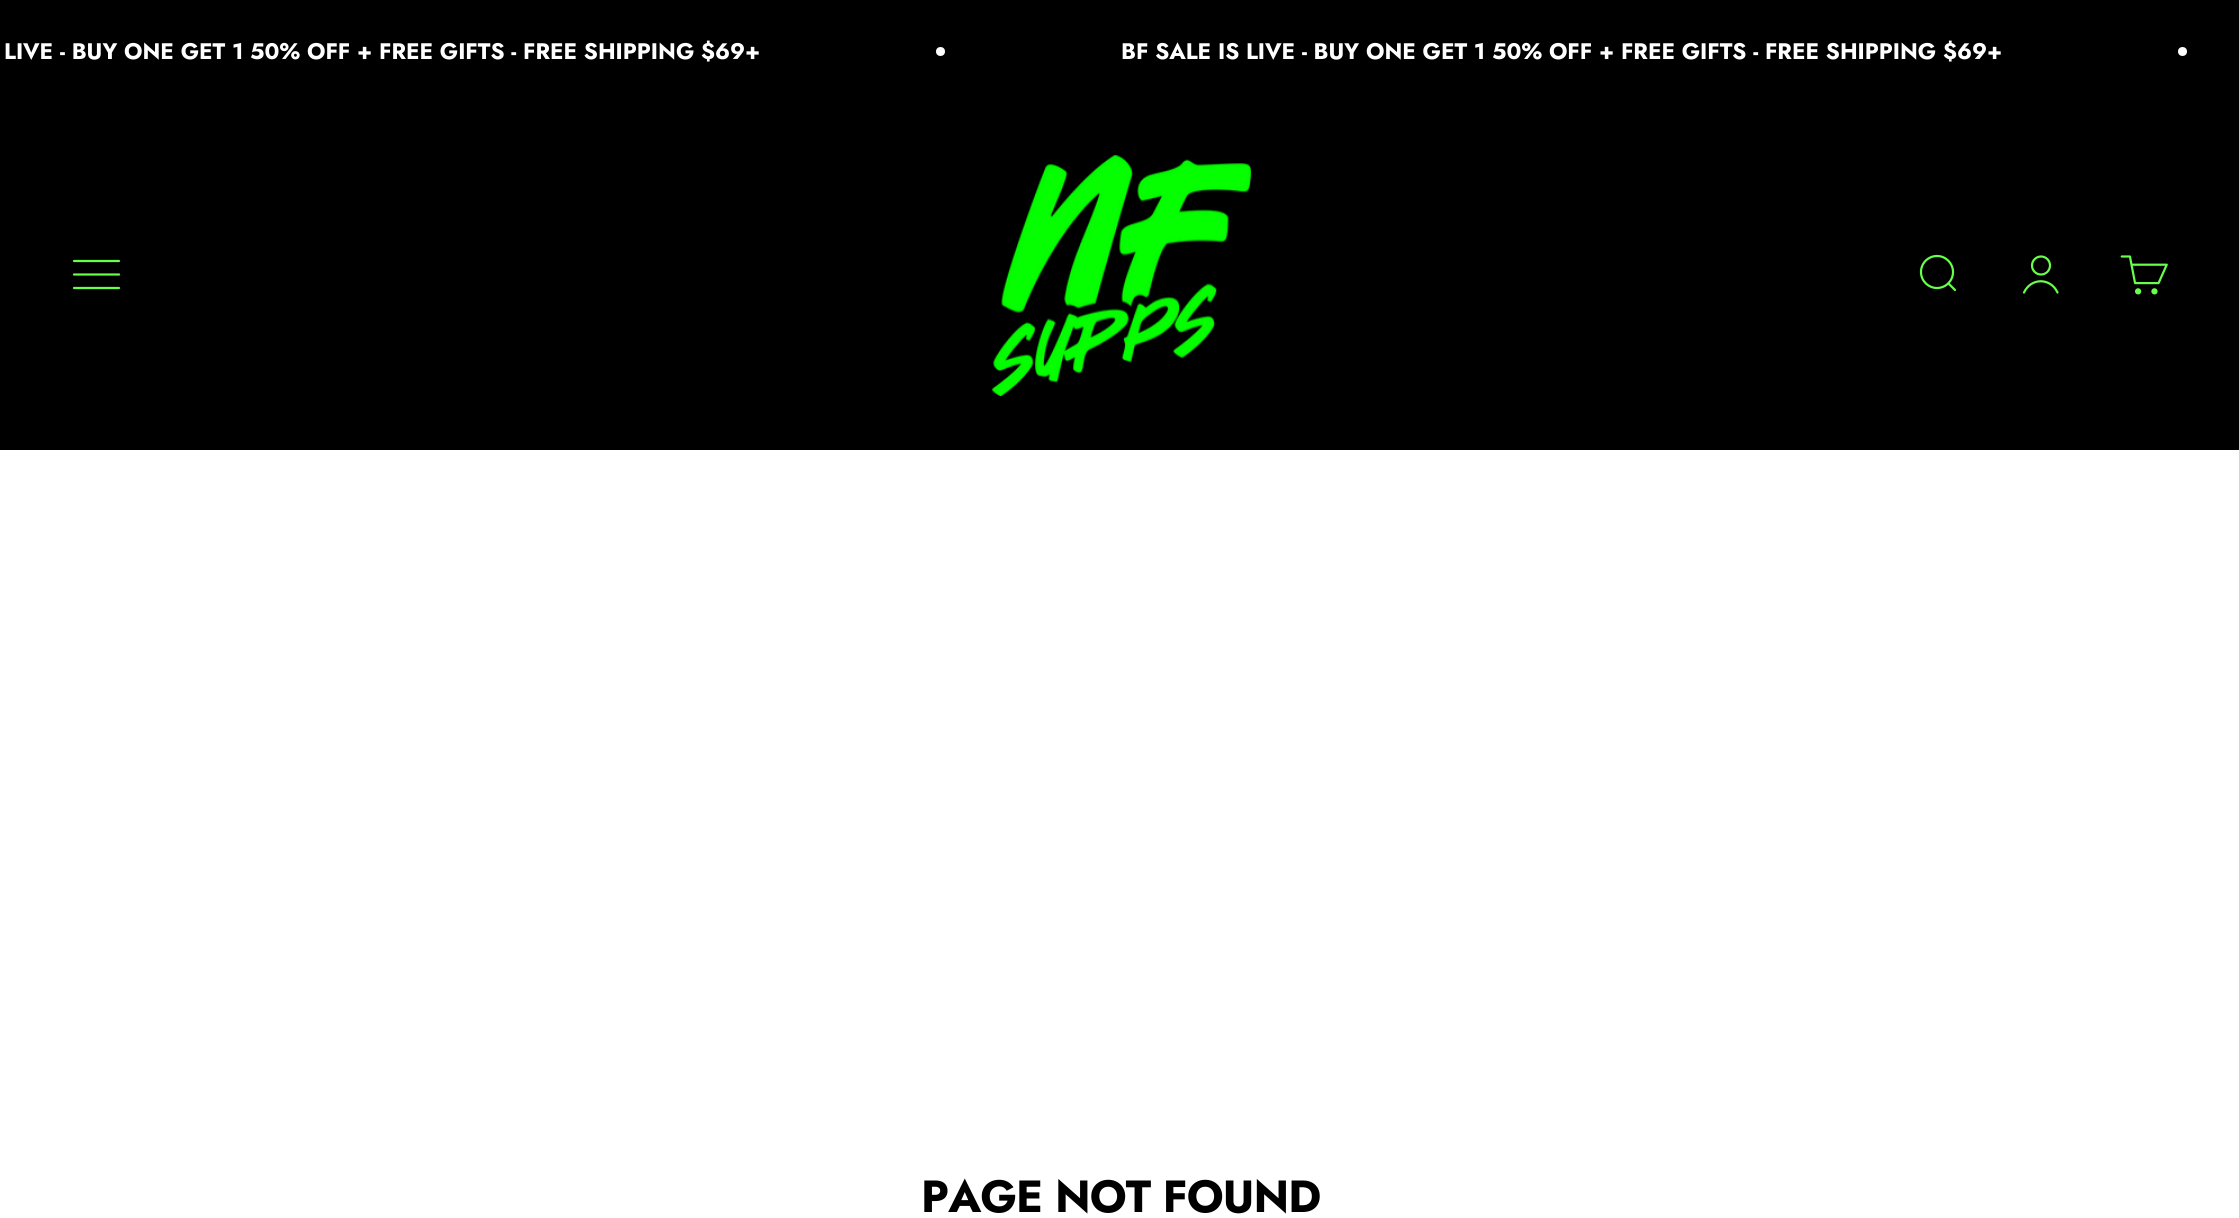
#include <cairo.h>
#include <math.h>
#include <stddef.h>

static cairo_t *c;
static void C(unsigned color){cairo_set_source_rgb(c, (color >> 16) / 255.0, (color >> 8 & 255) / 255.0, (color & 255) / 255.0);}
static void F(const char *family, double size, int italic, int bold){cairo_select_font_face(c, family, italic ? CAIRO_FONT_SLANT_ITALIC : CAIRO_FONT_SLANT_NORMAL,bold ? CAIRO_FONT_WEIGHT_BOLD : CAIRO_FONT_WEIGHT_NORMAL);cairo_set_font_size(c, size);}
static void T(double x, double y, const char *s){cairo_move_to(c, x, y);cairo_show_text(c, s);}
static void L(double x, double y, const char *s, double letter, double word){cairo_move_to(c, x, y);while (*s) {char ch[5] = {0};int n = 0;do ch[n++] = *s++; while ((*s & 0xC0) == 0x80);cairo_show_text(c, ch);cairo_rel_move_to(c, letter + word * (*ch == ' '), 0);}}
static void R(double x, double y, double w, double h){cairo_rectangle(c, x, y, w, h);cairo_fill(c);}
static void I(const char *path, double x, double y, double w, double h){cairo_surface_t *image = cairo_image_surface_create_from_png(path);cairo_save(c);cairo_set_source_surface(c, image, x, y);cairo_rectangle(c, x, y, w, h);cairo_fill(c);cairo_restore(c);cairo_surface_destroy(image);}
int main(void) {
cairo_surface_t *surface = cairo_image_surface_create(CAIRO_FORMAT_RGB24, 2239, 1218);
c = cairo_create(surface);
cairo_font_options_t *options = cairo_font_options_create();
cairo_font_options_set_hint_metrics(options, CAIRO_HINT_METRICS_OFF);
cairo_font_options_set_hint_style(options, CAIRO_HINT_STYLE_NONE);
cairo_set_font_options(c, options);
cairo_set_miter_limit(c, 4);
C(0xffffff);
cairo_paint(c);
C(0x000000);
R(0,0,2239,450);
F("Jost",22.5,0,1);
C(0xffffff);
T(4,59,"LIVE - BUY ONE GET 1 50% OFF + FREE GIFTS - FREE SHIPPING $69+");
cairo_new_path(c);
cairo_arc(c,940.5,51.5,4.5,0,2 * M_PI);
cairo_fill(c);
T(1121,59,"BF SALE IS LIVE - BUY ONE GET 1 50% OFF + FREE GIFTS - FREE SHIPPING $69+");
cairo_new_path(c);
cairo_arc(c,2182.5,51.5,4.5,0,2 * M_PI);
cairo_fill(c);
cairo_new_path(c);
cairo_move_to(c,74,261);
cairo_line_to(c,119,261);
cairo_move_to(c,74,274.5);
cairo_line_to(c,119,274.5);
cairo_move_to(c,74,288);
cairo_line_to(c,119,288);
C(0x68ff4a);
cairo_set_line_width(c,2.2);
cairo_set_line_cap(c,CAIRO_LINE_CAP_ROUND);
cairo_stroke(c);
I("1.png",992,155,259,241);
cairo_arc(c,1937,272,16,0,2 * M_PI);
cairo_set_line_cap(c,CAIRO_LINE_CAP_BUTT);
cairo_stroke(c);
cairo_new_path(c);
cairo_move_to(c,1948.5,283.5);
cairo_line_to(c,1955,290);
cairo_set_line_cap(c,CAIRO_LINE_CAP_ROUND);
cairo_set_line_join(c,CAIRO_LINE_JOIN_ROUND);
cairo_stroke(c);
cairo_arc(c,2041,265.5,9,0,2 * M_PI);
cairo_set_line_cap(c,CAIRO_LINE_CAP_BUTT);
cairo_set_line_join(c,CAIRO_LINE_JOIN_MITER);
cairo_stroke(c);
cairo_new_path(c);
cairo_move_to(c,2024,292.5);
cairo_curve_to(c,2031,277.5,2050.5,277.5,2057.5,292.5);
cairo_set_line_cap(c,CAIRO_LINE_CAP_ROUND);
cairo_stroke(c);
I("2.png",2120,255,48,40);
F("Jost",45,0,1);
C(0x000000);
L(921,1212,"PAGE NOT FOUND",-.9,0);
cairo_surface_write_to_png(surface, "o.png");
cairo_font_options_destroy(options);
cairo_destroy(c);
cairo_surface_destroy(surface);
return 0;
}
